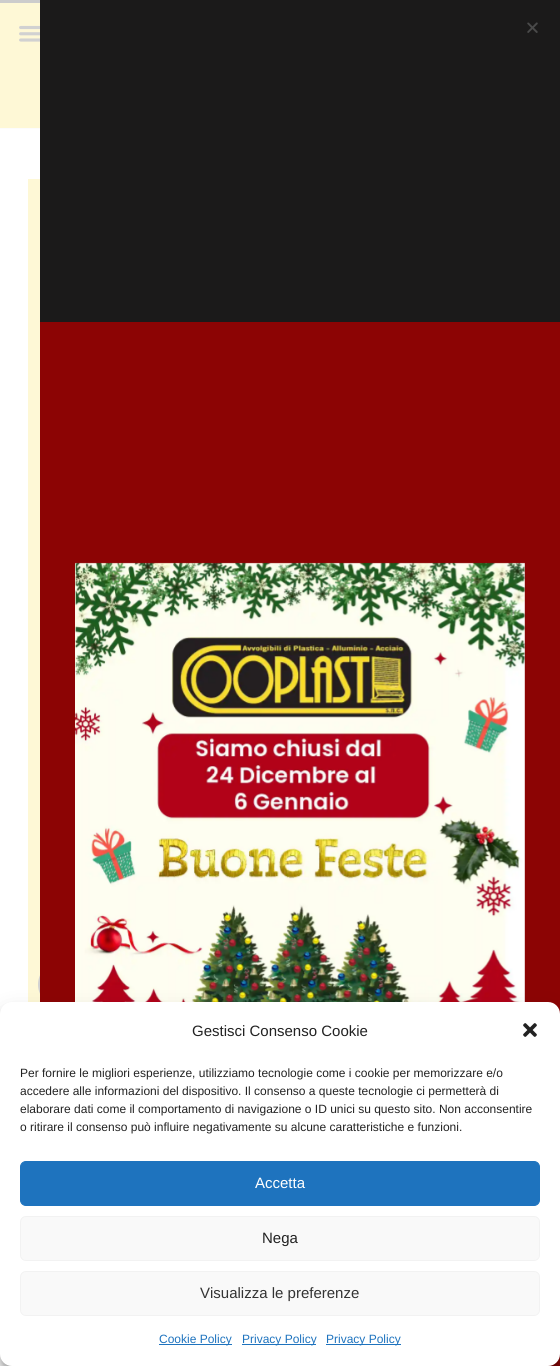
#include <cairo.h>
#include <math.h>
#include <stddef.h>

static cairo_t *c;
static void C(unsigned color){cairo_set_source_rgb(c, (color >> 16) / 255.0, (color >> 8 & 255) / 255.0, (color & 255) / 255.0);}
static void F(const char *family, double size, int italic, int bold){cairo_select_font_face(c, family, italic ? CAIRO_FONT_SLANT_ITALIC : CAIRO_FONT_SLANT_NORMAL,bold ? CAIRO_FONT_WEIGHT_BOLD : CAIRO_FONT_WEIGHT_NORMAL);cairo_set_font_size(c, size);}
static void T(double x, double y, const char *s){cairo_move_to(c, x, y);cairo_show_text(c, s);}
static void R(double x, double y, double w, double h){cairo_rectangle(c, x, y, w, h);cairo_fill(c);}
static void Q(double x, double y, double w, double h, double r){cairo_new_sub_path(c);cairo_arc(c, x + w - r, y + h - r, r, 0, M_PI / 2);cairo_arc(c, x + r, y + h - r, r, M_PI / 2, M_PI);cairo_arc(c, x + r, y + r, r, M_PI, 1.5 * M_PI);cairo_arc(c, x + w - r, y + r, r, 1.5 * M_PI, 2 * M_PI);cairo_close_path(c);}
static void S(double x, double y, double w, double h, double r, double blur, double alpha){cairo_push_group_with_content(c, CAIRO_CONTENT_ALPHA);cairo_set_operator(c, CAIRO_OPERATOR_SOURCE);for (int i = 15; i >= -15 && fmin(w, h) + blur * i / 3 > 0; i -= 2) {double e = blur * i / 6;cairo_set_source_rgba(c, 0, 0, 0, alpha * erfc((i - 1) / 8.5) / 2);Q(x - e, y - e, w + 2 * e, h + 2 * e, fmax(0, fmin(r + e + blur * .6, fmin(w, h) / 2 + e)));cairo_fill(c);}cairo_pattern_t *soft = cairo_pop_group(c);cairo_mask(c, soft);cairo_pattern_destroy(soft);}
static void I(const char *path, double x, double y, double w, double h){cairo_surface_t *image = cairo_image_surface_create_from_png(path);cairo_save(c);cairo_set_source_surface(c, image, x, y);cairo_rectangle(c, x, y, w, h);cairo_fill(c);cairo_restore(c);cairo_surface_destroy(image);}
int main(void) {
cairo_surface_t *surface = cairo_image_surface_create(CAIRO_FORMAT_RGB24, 560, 1366);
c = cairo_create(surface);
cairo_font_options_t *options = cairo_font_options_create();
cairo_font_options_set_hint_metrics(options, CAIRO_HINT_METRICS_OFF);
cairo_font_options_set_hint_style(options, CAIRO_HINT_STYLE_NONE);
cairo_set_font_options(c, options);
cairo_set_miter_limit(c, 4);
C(0xffffff);
cairo_paint(c);
C(0xfcfcfc);
R(0,128,40,1);
C(0xfef8d6);
R(0,3,40,125);
C(0xcccccc);
R(0,0,40,3);
I("1.png",19,25,21,17);
C(0xfef8d6);
R(28,179,12,252);
R(28,431,12,571);
Q(39,963,45,43,21.5);
C(0xd1d1d1);
cairo_stroke(c);
C(0x1b1a1a);
R(40,0,520,322);
C(0x8c0404);
R(40,322,520,1044);
I("2.png",75,562,450,440);
I("3.png",527,22,11,11);
C(0x000000);
S(0,1008,560,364,12,3,.23);
S(0,1012,560,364,12,10,.19);
C(0xffffff);
Q(0,1002,560,364,12);
cairo_fill(c);
F("Liberation Sans",15,0,0);
C(0x222222);
T(192,1036,"Gestisci Consenso Cookie");
I("4.png",523,1023,14,14);
F("Liberation Sans",12,0,0);
T(20,1077,"Per fornire le migliori esperienze, utilizziamo tecnologie come i cookie per memorizzare e/o");
T(20,1095,"accedere alle informazioni del dispositivo. Il consenso a queste tecnologie ci permetterà di");
T(20,1113,"elaborare dati come il comportamento di navigazione o ID unici su questo sito. Non acconsentire");
T(20,1131,"o ritirare il consenso può influire negativamente su alcune caratteristiche e funzioni.");
C(0x1e73be);
Q(20.5,1161.5,519,44,5.5);
cairo_fill_preserve(c);
cairo_set_line_width(c,1);
cairo_stroke(c);
F("Liberation Sans",15,0,0);
C(0xffffff);
T(255,1188,"Accetta");
C(0xf9f9f9);
Q(20.5,1216.5,519,44,5.5);
cairo_fill_preserve(c);
C(0xf2f2f2);
cairo_stroke(c);
C(0x222222);
T(262,1243,"Nega");
C(0xf9f9f9);
Q(20.5,1271.5,519,44,5.5);
cairo_fill_preserve(c);
C(0xf2f2f2);
cairo_stroke(c);
C(0x333333);
T(200,1298,"Visualizza le preferenze");
C(0x1e73be);
R(159,1344,73,1);
F("Liberation Sans",12,0,0);
T(159,1343,"Cookie Policy");
R(242,1344,74,1);
T(242,1343,"Privacy Policy");
R(326,1344,75,1);
T(326,1343,"Privacy Policy");
cairo_surface_write_to_png(surface, "o.png");
cairo_font_options_destroy(options);
cairo_destroy(c);
cairo_surface_destroy(surface);
return 0;
}
